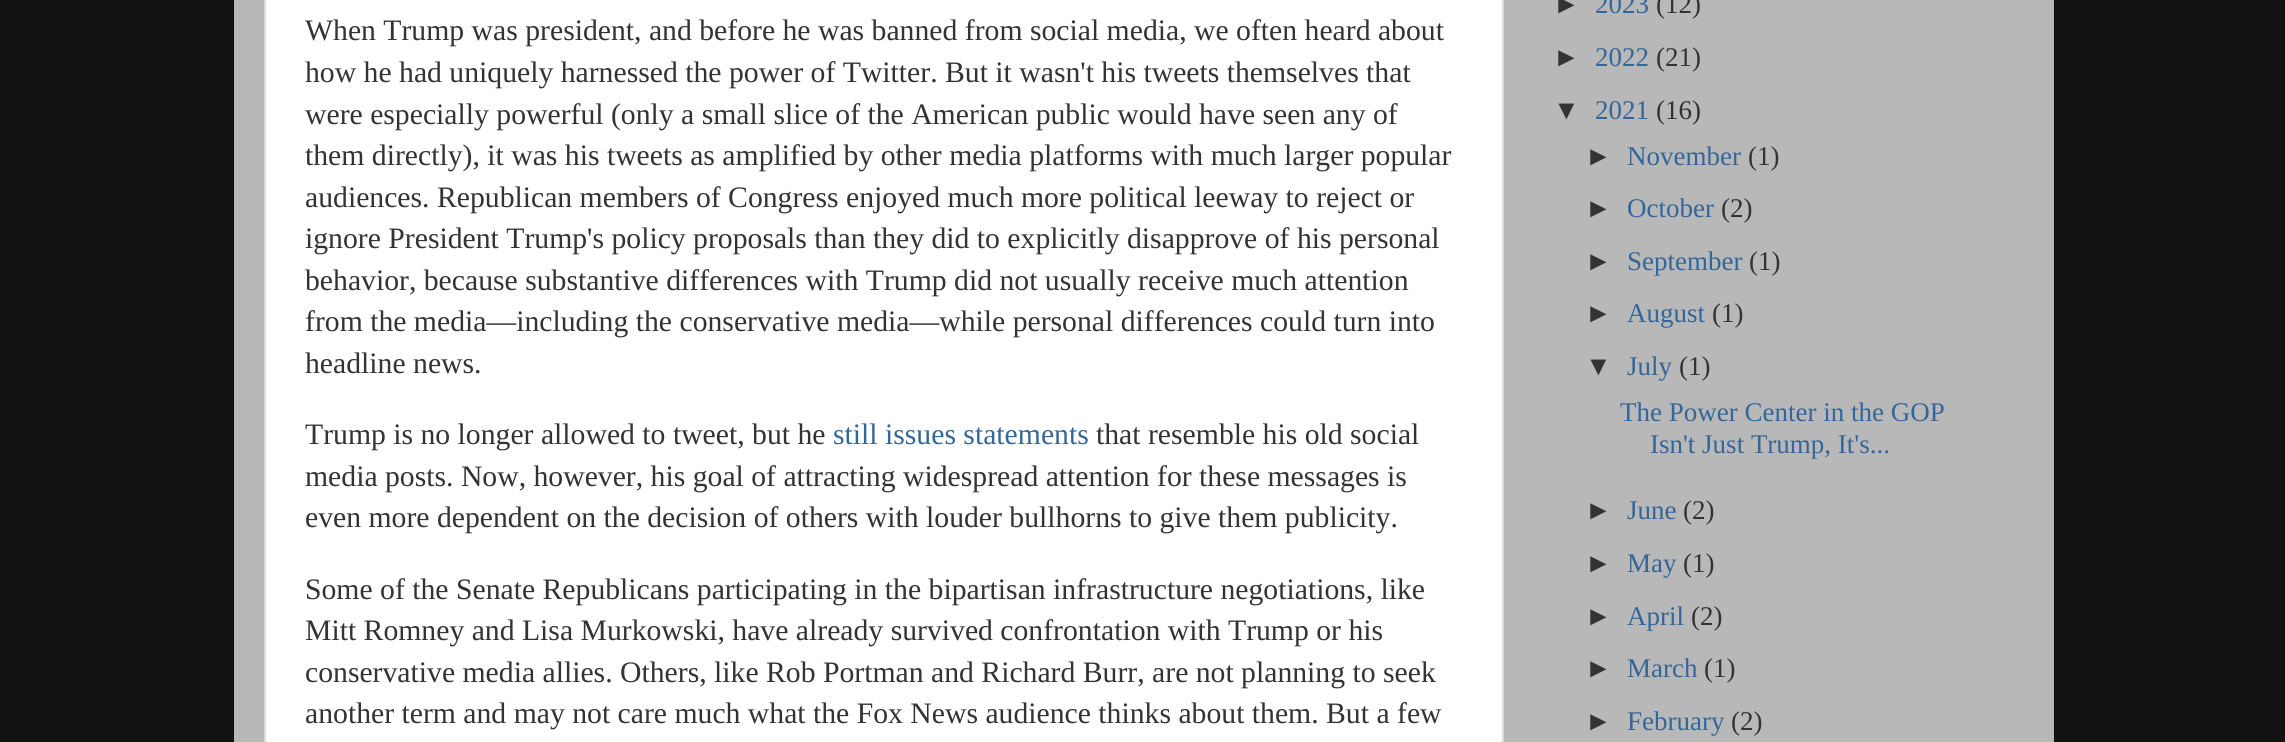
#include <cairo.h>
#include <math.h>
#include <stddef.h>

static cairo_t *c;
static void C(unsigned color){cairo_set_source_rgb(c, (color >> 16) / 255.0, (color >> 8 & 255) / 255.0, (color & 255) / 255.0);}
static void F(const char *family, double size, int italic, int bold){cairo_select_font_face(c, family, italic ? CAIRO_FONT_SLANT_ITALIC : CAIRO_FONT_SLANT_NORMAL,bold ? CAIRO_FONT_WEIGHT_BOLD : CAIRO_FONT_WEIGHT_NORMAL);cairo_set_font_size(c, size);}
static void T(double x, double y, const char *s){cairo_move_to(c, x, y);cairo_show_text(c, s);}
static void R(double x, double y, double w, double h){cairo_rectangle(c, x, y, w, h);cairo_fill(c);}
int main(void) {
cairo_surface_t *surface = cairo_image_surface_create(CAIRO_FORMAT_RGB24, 2285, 742);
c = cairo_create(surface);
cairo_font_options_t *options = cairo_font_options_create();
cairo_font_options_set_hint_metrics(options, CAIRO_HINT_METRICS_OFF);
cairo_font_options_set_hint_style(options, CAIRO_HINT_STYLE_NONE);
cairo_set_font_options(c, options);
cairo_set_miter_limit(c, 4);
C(0x111111);
cairo_paint(c);
C(0xb8b8b8);
R(234,0,1820,742);
C(0xffffff);
cairo_rectangle(c,265,-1,1238,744);
cairo_fill_preserve(c);
C(0xdddddd);
cairo_stroke(c);
F("Liberation Serif",29.7,0,0);
C(0x333333);
T(305,40,"When Trump was president, and before he was banned from social media, we often heard about");
T(305,82,"how he had uniquely harnessed the power of Twitter. But it wasn't his tweets themselves that");
T(305,124,"were especially powerful (only a small slice of the American public would have seen any of");
T(305,165,"them directly), it was his tweets as amplified by other media platforms with much larger popular");
T(305,207,"audiences. Republican members of Congress enjoyed much more political leeway to reject or");
T(305,248,"ignore President Trump's policy proposals than they did to explicitly disapprove of his personal");
T(305,290,"behavior, because substantive differences with Trump did not usually receive much attention");
T(305,331,"from the media—including the conservative media—while personal differences could turn into");
T(305,373,"headline news.");
T(305,444,"Trump is no longer allowed to tweet, but he");
C(0x336699);
T(833,444,"still issues statements");
C(0x333333);
T(1096,444,"that resemble his old social");
T(305,486,"media posts. Now, however, his goal of attracting widespread attention for these messages is");
T(305,527,"even more dependent on the decision of others with louder bullhorns to give them publicity.");
T(305,599,"Some of the Senate Republicans participating in the bipartisan infrastructure negotiations, like");
T(305,640,"Mitt Romney and Lisa Murkowski, have already survived confrontation with Trump or his");
T(305,682,"conservative media allies. Others, like Rob Portman and Richard Burr, are not planning to seek");
T(305,723,"another term and may not care much what the Fox News audience thinks about them. But a few");
F("Liberation Sans",27,0,0);
T(1553,13,"►");
F("Liberation Serif",27,0,0);
C(0x336699);
T(1595,13,"2023");
C(0x333333);
T(1656,13,"(12)");
F("Liberation Sans",27,0,0);
T(1553,66,"►");
F("Liberation Serif",27,0,0);
C(0x336699);
T(1595,66,"2022");
C(0x333333);
T(1656,66,"(21)");
F("Liberation Sans",27,0,0);
T(1553,119,"▼");
F("Liberation Serif",27,0,0);
C(0x336699);
T(1595,119,"2021");
C(0x333333);
T(1656,119,"(16)");
F("Liberation Sans",27,0,0);
T(1585,165,"►");
F("Liberation Serif",27,0,0);
C(0x336699);
T(1627,165,"November");
C(0x333333);
T(1748,165,"(1)");
F("Liberation Sans",27,0,0);
T(1585,217,"►");
F("Liberation Serif",27,0,0);
C(0x336699);
T(1627,217,"October");
C(0x333333);
T(1721,217,"(2)");
F("Liberation Sans",27,0,0);
T(1585,270,"►");
F("Liberation Serif",27,0,0);
C(0x336699);
T(1627,270,"September");
C(0x333333);
T(1749,270,"(1)");
F("Liberation Sans",27,0,0);
T(1585,322,"►");
F("Liberation Serif",27,0,0);
C(0x336699);
T(1627,322,"August");
C(0x333333);
T(1712,322,"(1)");
F("Liberation Sans",27,0,0);
T(1585,375,"▼");
F("Liberation Serif",27,0,0);
C(0x336699);
T(1627,375,"July");
C(0x333333);
T(1679,375,"(1)");
C(0x336699);
T(1620,421,"The Power Center in the GOP");
T(1650,453,"Isn't Just Trump, It's...");
F("Liberation Sans",27,0,0);
C(0x333333);
T(1585,519,"►");
F("Liberation Serif",27,0,0);
C(0x336699);
T(1627,519,"June");
C(0x333333);
T(1683,519,"(2)");
F("Liberation Sans",27,0,0);
T(1585,572,"►");
F("Liberation Serif",27,0,0);
C(0x336699);
T(1627,572,"May");
C(0x333333);
T(1683,572,"(1)");
F("Liberation Sans",27,0,0);
T(1585,625,"►");
F("Liberation Serif",27,0,0);
C(0x336699);
T(1627,625,"April");
C(0x333333);
T(1691,625,"(2)");
F("Liberation Sans",27,0,0);
T(1585,677,"►");
F("Liberation Serif",27,0,0);
C(0x336699);
T(1627,677,"March");
C(0x333333);
T(1704,677,"(1)");
F("Liberation Sans",27,0,0);
T(1585,730,"►");
F("Liberation Serif",27,0,0);
C(0x336699);
T(1627,730,"February");
C(0x333333);
T(1731,730,"(2)");
cairo_surface_write_to_png(surface, "o.png");
cairo_font_options_destroy(options);
cairo_destroy(c);
cairo_surface_destroy(surface);
return 0;
}
